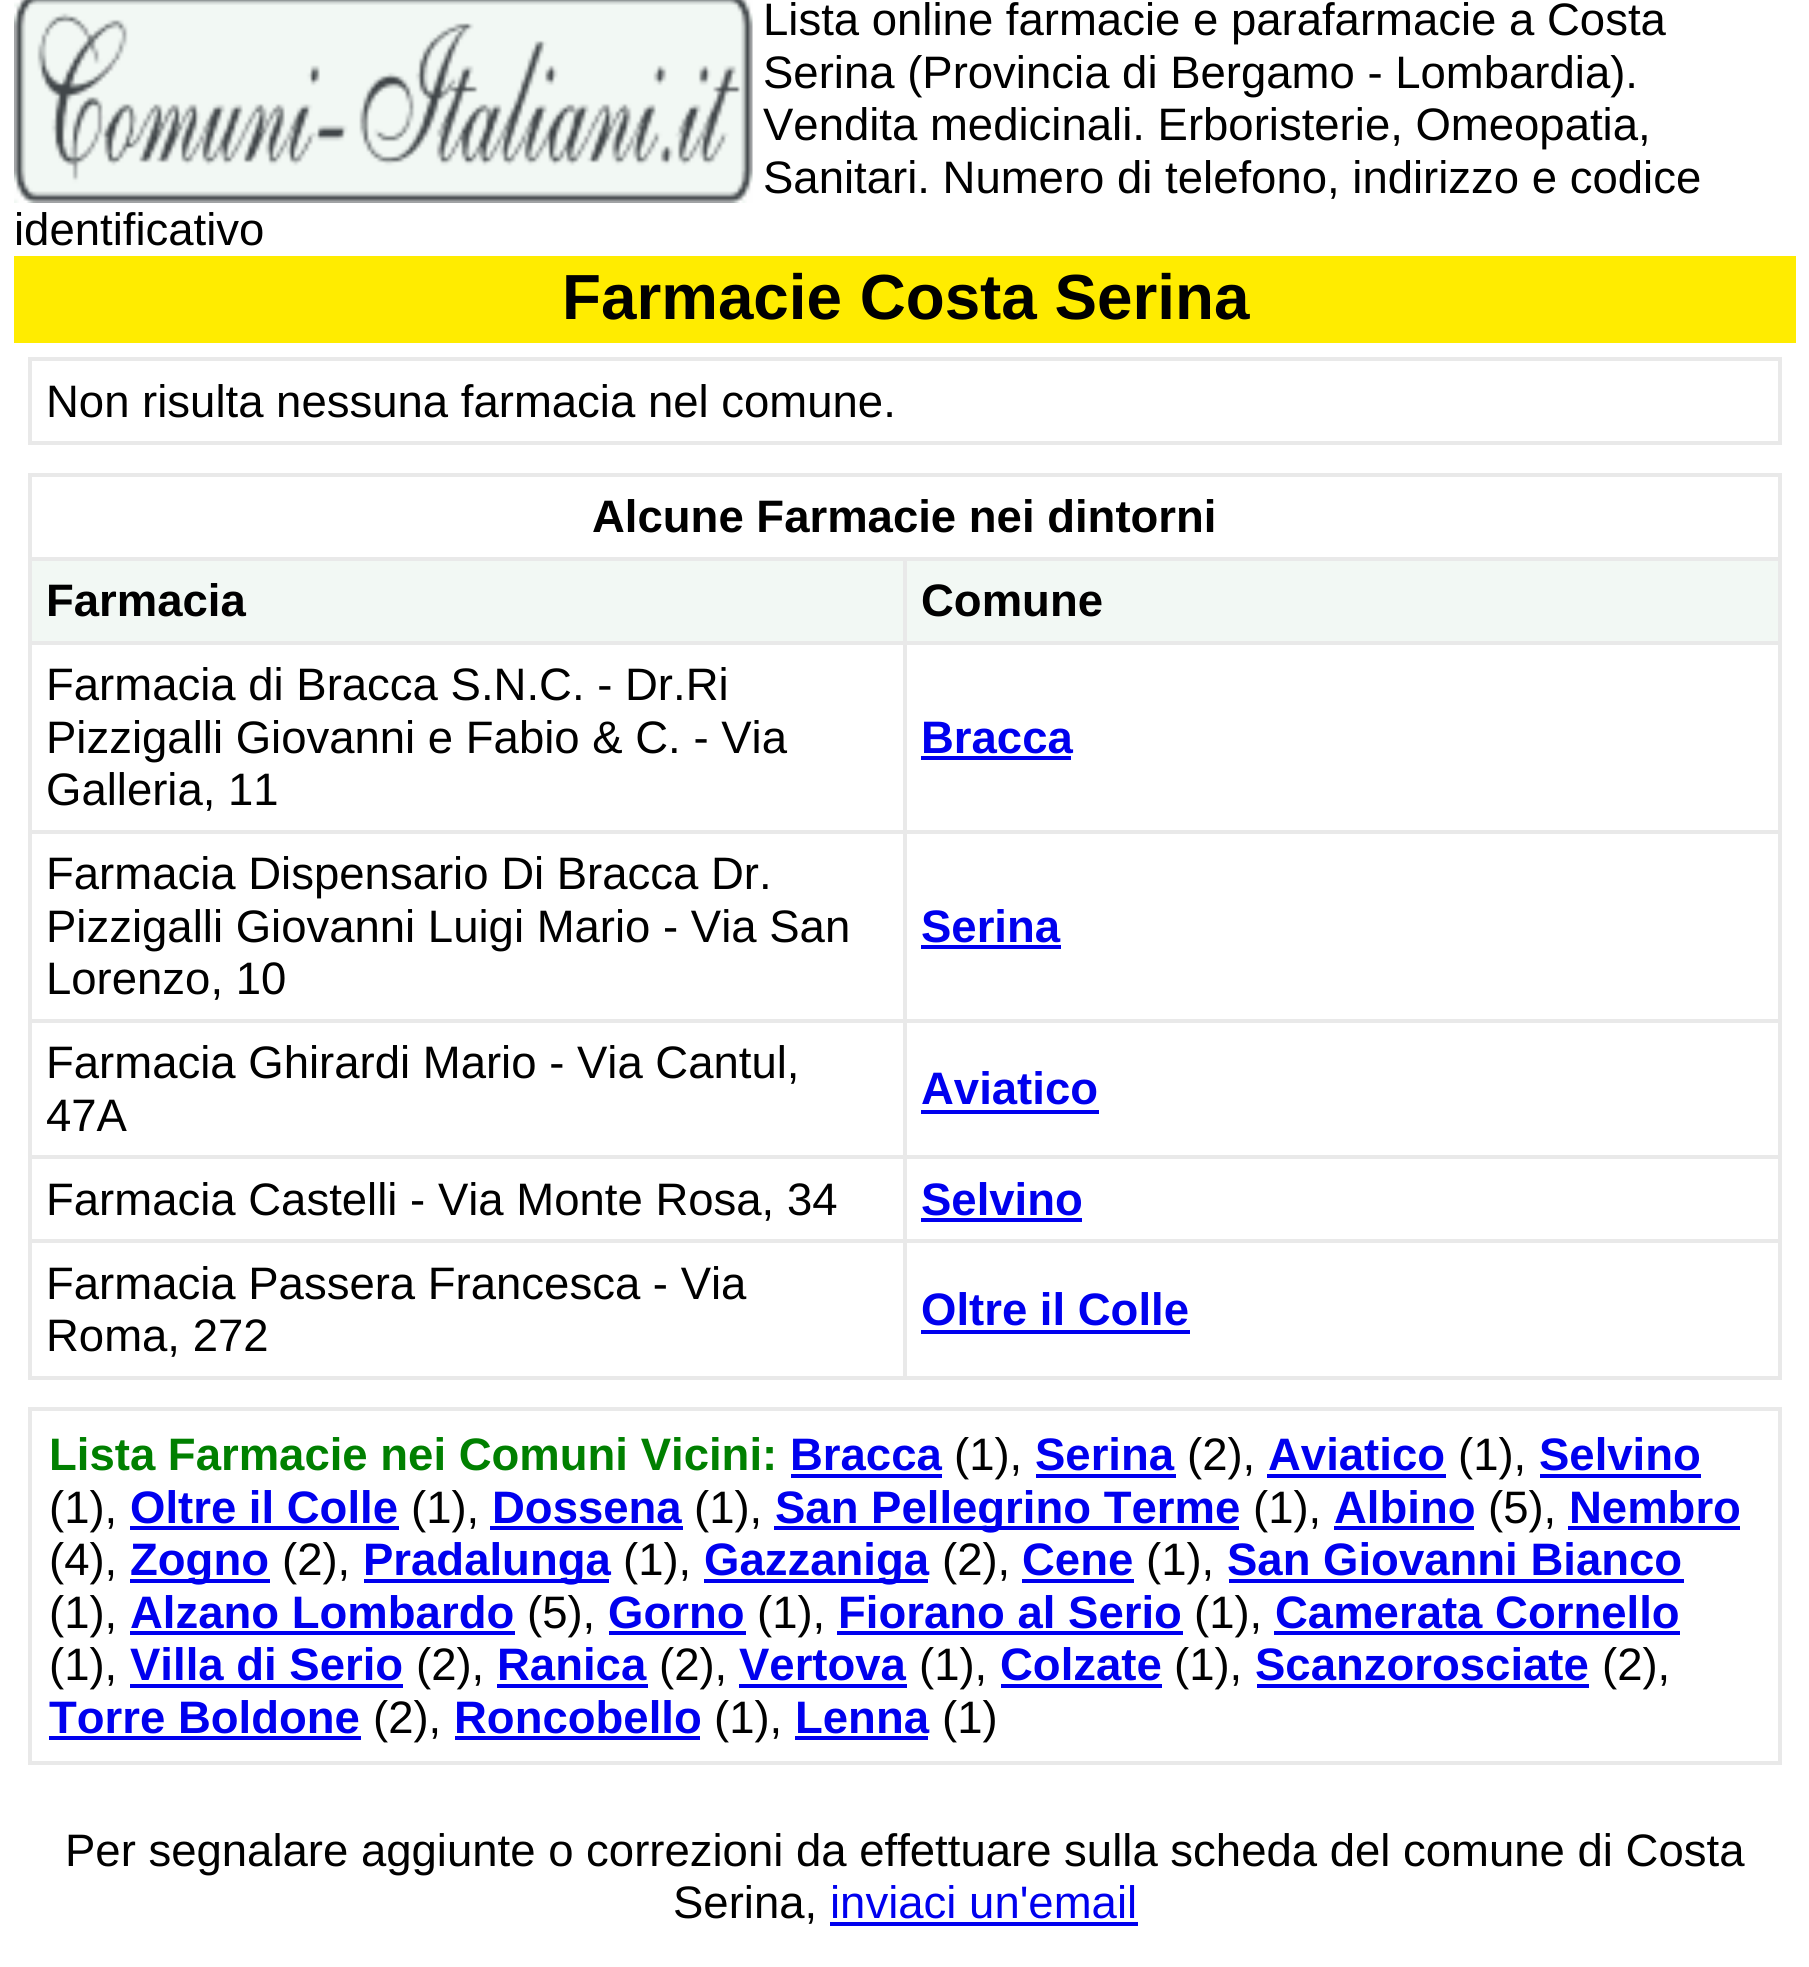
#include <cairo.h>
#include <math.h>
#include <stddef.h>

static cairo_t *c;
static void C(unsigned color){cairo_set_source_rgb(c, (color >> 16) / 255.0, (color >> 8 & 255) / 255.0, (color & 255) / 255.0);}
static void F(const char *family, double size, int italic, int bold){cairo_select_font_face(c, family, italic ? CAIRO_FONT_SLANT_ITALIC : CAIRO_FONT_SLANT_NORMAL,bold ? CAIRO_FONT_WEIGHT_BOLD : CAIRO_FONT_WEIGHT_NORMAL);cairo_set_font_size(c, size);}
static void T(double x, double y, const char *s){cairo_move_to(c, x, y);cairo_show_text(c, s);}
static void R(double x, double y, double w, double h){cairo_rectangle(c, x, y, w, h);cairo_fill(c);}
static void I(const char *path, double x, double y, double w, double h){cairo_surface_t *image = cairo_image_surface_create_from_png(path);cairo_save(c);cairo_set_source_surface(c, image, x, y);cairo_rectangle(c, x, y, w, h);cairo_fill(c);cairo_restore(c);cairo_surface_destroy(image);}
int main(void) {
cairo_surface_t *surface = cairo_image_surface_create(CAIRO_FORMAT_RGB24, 1809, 1967);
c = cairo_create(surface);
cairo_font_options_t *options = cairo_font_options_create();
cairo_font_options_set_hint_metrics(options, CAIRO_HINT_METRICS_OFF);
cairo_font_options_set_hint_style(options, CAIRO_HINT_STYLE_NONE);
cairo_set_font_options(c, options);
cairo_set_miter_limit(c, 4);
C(0xffffff);
cairo_paint(c);
I("1.png",14,0,739,203);
F("Liberation Sans",45.5,0,0);
C(0x000000);
T(763,35,"Lista online farmacie e parafarmacie a Costa");
T(763,88,"Serina (Provincia di Bergamo - Lombardia).");
T(763,140,"Vendita medicinali. Erboristerie, Omeopatia,");
T(763,193,"Sanitari. Numero di telefono, indirizzo e codice");
T(14,245,"identificativo");
C(0xffec00);
R(14,256,1782,87);
F("Liberation Sans",63.75,0,1);
C(0x000000);
T(562,319,"Farmacie Costa Serina");
C(0xe9e9e9);
R(28,357,1754,4);
R(1778,357,4,88);
R(28,441,1754,4);
R(28,357,4,88);
F("Liberation Sans",45.5,0,0);
C(0x000000);
T(46,417,"Non risulta nessuna farmacia nel comune.");
C(0xe9e9e9);
R(28,473,1754,4);
R(1778,473,4,906);
R(28,1376,1754,4);
R(28,473,4,906);
F("Liberation Sans",45.5,0,1);
C(0x000000);
T(592,532,"Alcune Farmacie nei dintorni");
C(0xf2f8f4);
R(32,561,871,80);
C(0xe9e9e9);
R(903,557,879,4);
R(903,641,879,4);
R(903,830,879,4);
R(903,1019,879,4);
R(903,1155,879,4);
R(903,1239,879,4);
R(903,1239,4,140);
R(28,1239,879,4);
R(903,1155,4,88);
R(28,1155,879,4);
R(903,1019,4,140);
R(28,1019,879,4);
R(903,830,4,192);
R(28,830,879,4);
R(903,641,4,192);
R(28,641,879,4);
R(903,557,4,87);
R(28,557,879,4);
C(0x000000);
T(46,616,"Farmacia");
C(0xf2f8f4);
R(907,561,871,80);
C(0x000000);
T(921,616,"Comune");
F("Liberation Sans",45.5,0,0);
T(46,700,"Farmacia di Bracca S.N.C. - Dr.Ri");
T(46,753,"Pizzigalli Giovanni e Fabio & C. - Via");
T(46,805,"Galleria, 11");
F("Liberation Sans",45.5,0,1);
C(0x0000ee);
T(921,753,"Bracca");
R(921,756,150,4);
F("Liberation Sans",45.5,0,0);
C(0x000000);
T(46,889,"Farmacia Dispensario Di Bracca Dr.");
T(46,942,"Pizzigalli Giovanni Luigi Mario - Via San");
T(46,994,"Lorenzo, 10");
F("Liberation Sans",45.5,0,1);
C(0x0000ee);
T(921,942,"Serina");
R(921,945,140,4);
F("Liberation Sans",45.5,0,0);
C(0x000000);
T(46,1078,"Farmacia Ghirardi Mario - Via Cantul,");
T(46,1131,"47A");
F("Liberation Sans",45.5,0,1);
C(0x0000ee);
T(921,1104,"Aviatico");
R(921,1110,178,4);
F("Liberation Sans",45.5,0,0);
C(0x000000);
T(46,1215,"Farmacia Castelli - Via Monte Rosa, 34");
F("Liberation Sans",45.5,0,1);
C(0x0000ee);
T(921,1215,"Selvino");
R(921,1218,161,4);
F("Liberation Sans",45.5,0,0);
C(0x000000);
T(46,1299,"Farmacia Passera Francesca - Via");
T(46,1351,"Roma, 272");
F("Liberation Sans",45.5,0,1);
C(0x0000ee);
T(921,1325,"Oltre il Colle");
R(921,1330,269,4);
C(0xe9e9e9);
R(28,1407,1754,4);
R(1778,1407,4,357);
R(28,1761,1754,4);
R(28,1407,4,357);
C(0x008000);
T(49,1470,"Lista Farmacie nei Comuni Vicini:");
C(0x0000ee);
T(790,1470,"Bracca");
R(791,1474,151,4);
F("Liberation Sans",45.5,0,0);
C(0x000000);
T(954,1470,"(1),");
F("Liberation Sans",45.5,0,1);
C(0x0000ee);
T(1035,1470,"Serina");
R(1036,1474,140,4);
F("Liberation Sans",45.5,0,0);
C(0x000000);
T(1187,1470,"(2),");
F("Liberation Sans",45.5,0,1);
C(0x0000ee);
T(1268,1470,"Aviatico");
R(1267,1474,179,4);
F("Liberation Sans",45.5,0,0);
C(0x000000);
T(1458,1470,"(1),");
F("Liberation Sans",45.5,0,1);
C(0x0000ee);
T(1539,1470,"Selvino");
R(1540,1474,161,4);
F("Liberation Sans",45.5,0,0);
C(0x000000);
T(49,1523,"(1),");
F("Liberation Sans",45.5,0,1);
C(0x0000ee);
T(130,1523,"Oltre il Colle");
R(130,1526,269,4);
F("Liberation Sans",45.5,0,0);
C(0x000000);
T(411,1523,"(1),");
F("Liberation Sans",45.5,0,1);
C(0x0000ee);
T(492,1523,"Dossena");
R(490,1526,193,4);
F("Liberation Sans",45.5,0,0);
C(0x000000);
T(694,1523,"(1),");
C(0x0000ee);
R(774,1526,465,4);
F("Liberation Sans",45.5,0,1);
T(775,1523,"San Pellegrino Terme");
F("Liberation Sans",45.5,0,0);
C(0x000000);
T(1253,1523,"(1),");
F("Liberation Sans",45.5,0,1);
C(0x0000ee);
T(1334,1523,"Albino");
R(1334,1526,140,4);
F("Liberation Sans",45.5,0,0);
C(0x000000);
T(1488,1523,"(5),");
F("Liberation Sans",45.5,0,1);
C(0x0000ee);
T(1569,1523,"Nembro");
R(1568,1526,172,4);
F("Liberation Sans",45.5,0,0);
C(0x000000);
T(49,1575,"(4),");
C(0x0000ee);
R(130,1579,140,4);
F("Liberation Sans",45.5,0,1);
T(130,1575,"Zogno");
F("Liberation Sans",45.5,0,0);
C(0x000000);
T(282,1575,"(2),");
C(0x0000ee);
R(364,1579,245,4);
F("Liberation Sans",45.5,0,1);
T(363,1575,"Pradalunga");
F("Liberation Sans",45.5,0,0);
C(0x000000);
T(623,1575,"(1),");
C(0x0000ee);
R(704,1579,224,4);
F("Liberation Sans",45.5,0,1);
T(704,1575,"Gazzaniga");
F("Liberation Sans",45.5,0,0);
C(0x000000);
T(942,1575,"(2),");
F("Liberation Sans",45.5,0,1);
C(0x0000ee);
T(1022,1575,"Cene");
R(1022,1579,112,4);
F("Liberation Sans",45.5,0,0);
C(0x000000);
T(1146,1575,"(1),");
F("Liberation Sans",45.5,0,1);
C(0x0000ee);
T(1227,1575,"San Giovanni Bianco");
R(1229,1579,455,4);
F("Liberation Sans",45.5,0,0);
C(0x000000);
T(49,1628,"(1),");
F("Liberation Sans",45.5,0,1);
C(0x0000ee);
T(130,1628,"Alzano Lombardo");
R(130,1631,385,4);
F("Liberation Sans",45.5,0,0);
C(0x000000);
T(527,1628,"(5),");
F("Liberation Sans",45.5,0,1);
C(0x0000ee);
T(608,1628,"Gorno");
R(609,1631,137,4);
F("Liberation Sans",45.5,0,0);
C(0x000000);
T(757,1628,"(1),");
F("Liberation Sans",45.5,0,1);
C(0x0000ee);
T(838,1628,"Fiorano al Serio");
R(837,1631,346,4);
F("Liberation Sans",45.5,0,0);
C(0x000000);
T(1194,1628,"(1),");
F("Liberation Sans",45.5,0,1);
C(0x0000ee);
T(1275,1628,"Camerata Cornello");
R(1274,1631,406,4);
F("Liberation Sans",45.5,0,0);
C(0x000000);
T(49,1680,"(1),");
F("Liberation Sans",45.5,0,1);
C(0x0000ee);
T(130,1680,"Villa di Serio");
R(130,1684,273,4);
F("Liberation Sans",45.5,0,0);
C(0x000000);
T(416,1680,"(2),");
F("Liberation Sans",45.5,0,1);
C(0x0000ee);
T(497,1680,"Ranica");
R(497,1684,151,4);
F("Liberation Sans",45.5,0,0);
C(0x000000);
T(659,1680,"(2),");
F("Liberation Sans",45.5,0,1);
C(0x0000ee);
T(739,1680,"Vertova");
R(739,1684,168,4);
F("Liberation Sans",45.5,0,0);
C(0x000000);
T(919,1680,"(1),");
F("Liberation Sans",45.5,0,1);
C(0x0000ee);
T(1000,1680,"Colzate");
R(1001,1684,161,4);
F("Liberation Sans",45.5,0,0);
C(0x000000);
T(1174,1680,"(1),");
F("Liberation Sans",45.5,0,1);
C(0x0000ee);
T(1255,1680,"Scanzorosciate");
R(1257,1684,332,4);
F("Liberation Sans",45.5,0,0);
C(0x000000);
T(1602,1680,"(2),");
F("Liberation Sans",45.5,0,1);
C(0x0000ee);
T(49,1733,"Torre Boldone");
R(49,1736,312,4);
F("Liberation Sans",45.5,0,0);
C(0x000000);
T(373,1733,"(2),");
F("Liberation Sans",45.5,0,1);
C(0x0000ee);
T(454,1733,"Roncobello");
R(455,1736,245,4);
F("Liberation Sans",45.5,0,0);
C(0x000000);
T(714,1733,"(1),");
F("Liberation Sans",45.5,0,1);
C(0x0000ee);
T(795,1733,"Lenna");
R(795,1736,133,4);
F("Liberation Sans",45.5,0,0);
C(0x000000);
T(942,1733,"(1)");
T(65,1866,"Per segnalare aggiunte o correzioni da effettuare sulla scheda del comune di Costa");
T(673,1918,"Serina,");
C(0x0000ee);
T(830,1918,"inviaci un'email");
R(830,1922,308,4);
cairo_surface_write_to_png(surface, "o.png");
cairo_font_options_destroy(options);
cairo_destroy(c);
cairo_surface_destroy(surface);
return 0;
}
